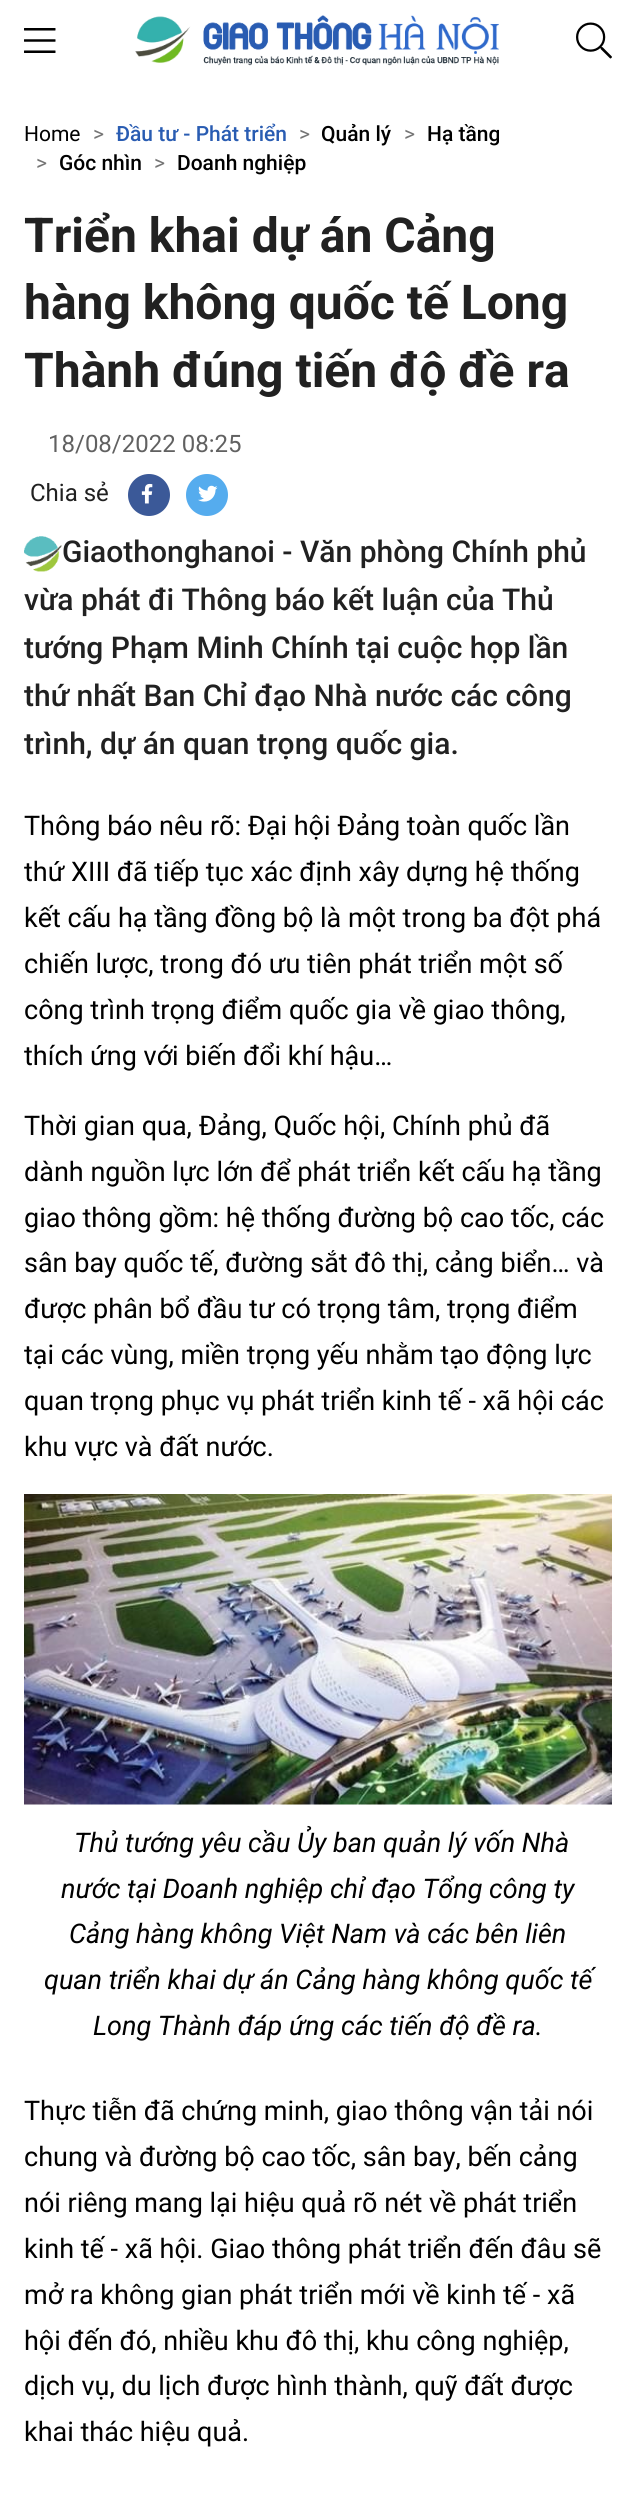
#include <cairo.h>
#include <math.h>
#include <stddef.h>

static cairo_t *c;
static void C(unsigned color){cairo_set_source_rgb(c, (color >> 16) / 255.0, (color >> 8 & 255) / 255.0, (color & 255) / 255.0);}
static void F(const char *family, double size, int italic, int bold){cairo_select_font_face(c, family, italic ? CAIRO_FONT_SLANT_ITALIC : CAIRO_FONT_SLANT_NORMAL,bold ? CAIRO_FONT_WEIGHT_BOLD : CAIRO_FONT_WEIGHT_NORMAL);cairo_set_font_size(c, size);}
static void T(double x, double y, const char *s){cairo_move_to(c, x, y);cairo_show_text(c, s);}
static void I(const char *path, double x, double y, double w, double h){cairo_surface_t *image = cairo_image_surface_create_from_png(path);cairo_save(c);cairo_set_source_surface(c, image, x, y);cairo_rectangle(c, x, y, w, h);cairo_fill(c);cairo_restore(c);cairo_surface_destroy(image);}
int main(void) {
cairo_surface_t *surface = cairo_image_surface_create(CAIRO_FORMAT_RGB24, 635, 2500);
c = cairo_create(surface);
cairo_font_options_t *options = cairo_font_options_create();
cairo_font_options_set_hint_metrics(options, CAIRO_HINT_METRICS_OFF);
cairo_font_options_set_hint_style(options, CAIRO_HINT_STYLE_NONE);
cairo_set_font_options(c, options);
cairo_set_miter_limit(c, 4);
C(0xffffff);
cairo_paint(c);
I("1.png",24,28,32,25);
I("2.png",135,15,364,51);
I("3.png",576,22,36,37);
F("Roboto",21,0,0);
C(0x000000);
T(24,141,"Home");
C(0x757575);
T(93,141,">");
F("Roboto Medium",21,0,0);
C(0x295cb2);
T(116,141,"Đầu tư - Phát triển");
F("Roboto",21,0,0);
C(0x757575);
T(299,141,">");
F("Roboto Medium",21,0,0);
C(0x000000);
T(321,141,"Quản lý");
F("Roboto",21,0,0);
C(0x757575);
T(404,141,">");
F("Roboto Medium",21,0,0);
C(0x000000);
T(427,141,"Hạ tầng");
F("Roboto",21,0,0);
C(0x757575);
T(36,170,">");
F("Roboto Medium",21,0,0);
C(0x000000);
T(59,170,"Góc nhìn");
F("Roboto",21,0,0);
C(0x757575);
T(154,170,">");
F("Roboto Medium",21,0,0);
C(0x000000);
T(177,170,"Doanh nghiệp");
F("Roboto",48,0,1);
C(0x212121);
T(24,252,"Triển khai dự án Cảng");
T(24,319,"hàng không quốc tế Long");
T(24,387,"Thành đúng tiến độ đề ra");
F("Roboto",24,0,0);
C(0x616161);
T(48,452,"18/08/2022 08:25");
C(0x212121);
T(30,501,"Chia sẻ");
C(0x3b5998);
cairo_new_path(c);
cairo_arc(c,149,495,21,0,2 * M_PI);
cairo_fill(c);
I("4.png",141,483,12,21);
C(0x55acee);
cairo_arc(c,207,495,21,0,2 * M_PI);
cairo_fill(c);
I("5.png",198,485,20,17);
I("6.png",24,536,38,36);
F("Roboto Medium",30,0,0);
C(0x212121);
T(62,562,"Giaothonghanoi - Văn phòng Chính phủ");
T(24,610,"vừa phát đi Thông báo kết luận của Thủ");
T(24,658,"tướng Phạm Minh Chính tại cuộc họp lần");
T(24,706,"thứ nhất Ban Chỉ đạo Nhà nước các công");
T(24,754,"trình, dự án quan trọng quốc gia.");
F("Roboto",27,0,0);
C(0x000000);
T(24,835,"Thông báo nêu rõ: Đại hội Đảng toàn quốc lần");
T(24,881,"thứ XIII đã tiếp tục xác định xây dựng hệ thống");
T(24,927,"kết cấu hạ tầng đồng bộ là một trong ba đột phá");
T(24,973,"chiến lược, trong đó ưu tiên phát triển một số");
T(24,1019,"công trình trọng điểm quốc gia về giao thông,");
T(24,1065,"thích ứng với biến đổi khí hậu…");
T(24,1135,"Thời gian qua, Đảng, Quốc hội, Chính phủ đã");
T(24,1181,"dành nguồn lực lớn để phát triển kết cấu hạ tầng");
T(24,1227,"giao thông gồm: hệ thống đường bộ cao tốc, các");
T(24,1272,"sân bay quốc tế, đường sắt đô thị, cảng biển… và");
T(24,1318,"được phân bổ đầu tư có trọng tâm, trọng điểm");
T(24,1364,"tại các vùng, miền trọng yếu nhằm tạo động lực");
T(24,1410,"quan trọng phục vụ phát triển kinh tế - xã hội các");
T(24,1456,"khu vực và đất nước.");
I("7.png",24,1494,588,311);
F("Roboto",27,1,0);
T(74,1852,"Thủ tướng yêu cầu Ủy ban quản lý vốn Nhà");
T(61,1898,"nước tại Doanh nghiệp chỉ đạo Tổng công ty");
T(69,1943,"Cảng hàng không Việt Nam và các bên liên");
T(44,1989,"quan triển khai dự án Cảng hàng không quốc tế");
T(93,2035,"Long Thành đáp ứng các tiến độ đề ra.");
F("Roboto",27,0,0);
T(24,2120,"Thực tiễn đã chứng minh, giao thông vận tải nói");
T(24,2166,"chung và đường bộ cao tốc, sân bay, bến cảng");
T(24,2212,"nói riêng mang lại hiệu quả rõ nét về phát triển");
T(24,2258,"kinh tế - xã hội. Giao thông phát triển đến đâu sẽ");
T(24,2304,"mở ra không gian phát triển mới về kinh tế - xã");
T(24,2350,"hội đến đó, nhiều khu đô thị, khu công nghiệp,");
T(24,2395,"dịch vụ, du lịch được hình thành, quỹ đất được");
T(24,2441,"khai thác hiệu quả.");
cairo_surface_write_to_png(surface, "o.png");
cairo_font_options_destroy(options);
cairo_destroy(c);
cairo_surface_destroy(surface);
return 0;
}
